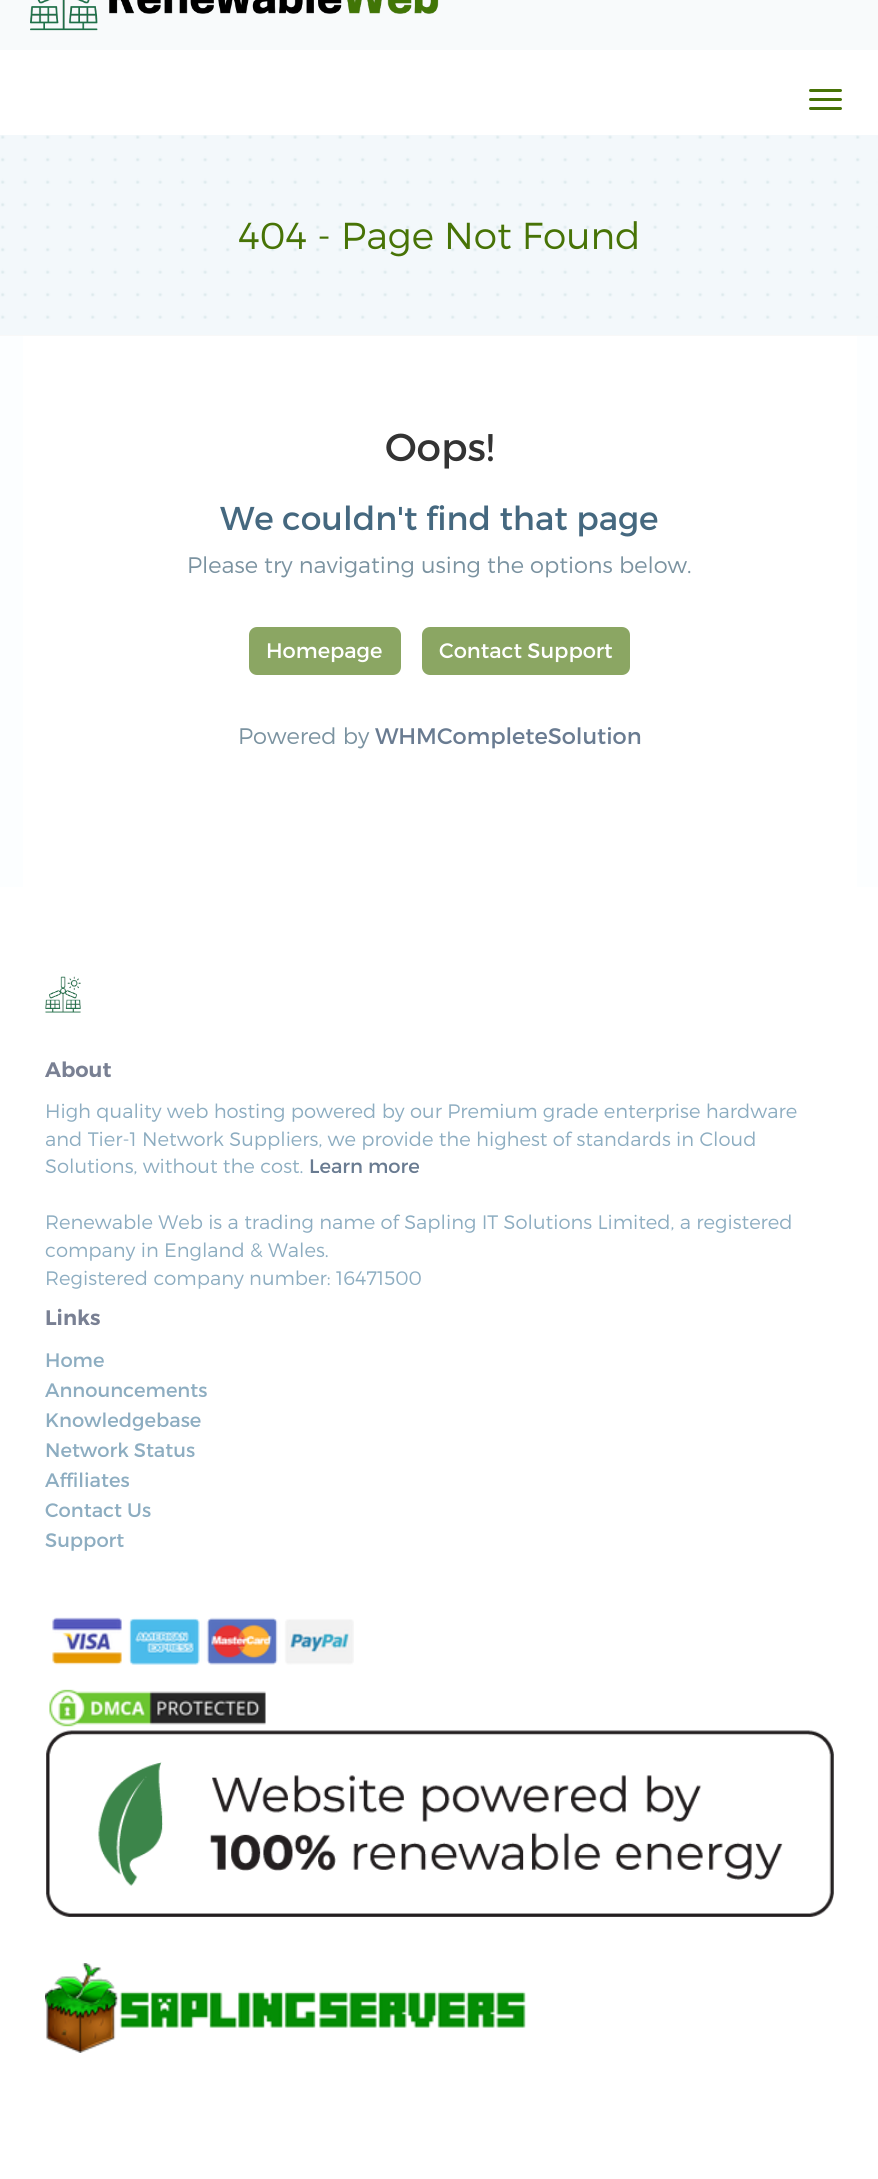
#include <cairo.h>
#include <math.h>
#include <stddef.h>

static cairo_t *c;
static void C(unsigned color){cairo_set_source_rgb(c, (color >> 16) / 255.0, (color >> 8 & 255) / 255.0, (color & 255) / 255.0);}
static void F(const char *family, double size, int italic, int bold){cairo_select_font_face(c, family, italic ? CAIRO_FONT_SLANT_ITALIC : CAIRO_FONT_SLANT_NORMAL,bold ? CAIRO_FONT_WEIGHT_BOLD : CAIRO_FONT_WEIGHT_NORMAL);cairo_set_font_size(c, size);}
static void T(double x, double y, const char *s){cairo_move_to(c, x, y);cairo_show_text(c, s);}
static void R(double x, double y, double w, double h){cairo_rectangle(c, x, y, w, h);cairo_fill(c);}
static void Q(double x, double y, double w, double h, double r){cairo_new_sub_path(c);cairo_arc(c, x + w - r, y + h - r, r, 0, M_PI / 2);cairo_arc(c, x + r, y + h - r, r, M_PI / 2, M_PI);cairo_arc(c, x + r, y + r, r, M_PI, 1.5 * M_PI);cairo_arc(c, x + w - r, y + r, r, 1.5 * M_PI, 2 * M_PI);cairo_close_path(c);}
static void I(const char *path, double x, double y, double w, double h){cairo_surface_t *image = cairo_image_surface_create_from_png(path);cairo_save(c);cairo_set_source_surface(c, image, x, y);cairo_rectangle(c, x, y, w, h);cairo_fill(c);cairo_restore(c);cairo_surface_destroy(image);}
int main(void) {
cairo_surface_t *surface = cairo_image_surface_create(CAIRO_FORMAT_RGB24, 878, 2179);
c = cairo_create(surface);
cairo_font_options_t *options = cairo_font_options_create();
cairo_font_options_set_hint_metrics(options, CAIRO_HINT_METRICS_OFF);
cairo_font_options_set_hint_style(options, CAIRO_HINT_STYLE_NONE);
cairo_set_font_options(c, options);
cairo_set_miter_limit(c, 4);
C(0xf8f8f8);
cairo_paint(c);
C(0xf8fafb);
R(0,0,878,50);
I("1.png",30,0,409,31);
C(0xffffff);
R(0,50,878,85);
C(0x477306);
Q(809,89,33,3,1.5);
cairo_fill(c);
Q(809,98,33,3,1.5);
cairo_fill(c);
Q(809,107,33,3,1.5);
cairo_fill(c);
I("2.png",0,135,878,200);
F("Montserrat Light",37.5,0,0);
T(238,249,"404 - Page Not Found");
C(0xfcfeff);
R(0,336,878,551);
C(0xffffff);
R(23,336,834,551);
F("Montserrat",39,0,0);
C(0x333333);
T(385,461,"Oops!");
F("Montserrat",33,0,0);
C(0x45687f);
T(220,530,"We couldn't find that page");
F("Montserrat Light",22.5,0,0);
C(0x7a92a0);
T(187,573,"Please try navigating using the options below.");
C(0x8ba663);
Q(249,627,152,48,8);
cairo_fill(c);
F("Montserrat",21,0,0);
C(0xffffff);
T(266,658,"Homepage");
C(0x8ba663);
Q(422,627,208,48,8);
cairo_fill(c);
C(0xffffff);
T(439,658,"Contact Support");
F("Montserrat Light",22.5,0,0);
C(0x7a92a0);
T(238,744,"Powered by");
F("Montserrat",22.5,0,0);
C(0x697b91);
T(375,744,"WHMCompleteSolution");
C(0xffffff);
R(0,887,878,1292);
I("3.png",45,976,36,37);
F("Montserrat SemiBold",21,0,0);
C(0x798093);
T(45,1077,"About");
F("Montserrat Light",19.5,0,0);
C(0x8dadc1);
T(45,1118,"High quality web hosting powered by our Premium grade enterprise hardware");
T(45,1146,"and Tier-1 Network Suppliers, we provide the highest of standards in Cloud");
T(45,1173,"Solutions, without the cost.");
F("Montserrat",19.5,0,0);
C(0x697b91);
T(309,1173,"Learn more");
F("Montserrat Light",19.5,0,0);
C(0x8dadc1);
T(45,1229,"Renewable Web is a trading name of Sapling IT Solutions Limited, a registered");
T(45,1257,"company in England & Wales.");
T(45,1285,"Registered company number: 16471500");
F("Montserrat SemiBold",21,0,0);
C(0x798093);
T(45,1325,"Links");
F("Montserrat",19.5,0,0);
C(0x8dadc1);
T(45,1367,"Home");
T(45,1397,"Announcements");
T(45,1427,"Knowledgebase");
T(45,1457,"Network Status");
T(45,1487,"Affiliates");
T(45,1517,"Contact Us");
T(45,1547,"Support");
I("4.png",52,1617,302,48);
I("5.png",49,1689,217,38);
I("6.png",46,1730,788,187);
I("7.png",45,1963,481,90);
cairo_surface_write_to_png(surface, "o.png");
cairo_font_options_destroy(options);
cairo_destroy(c);
cairo_surface_destroy(surface);
return 0;
}
